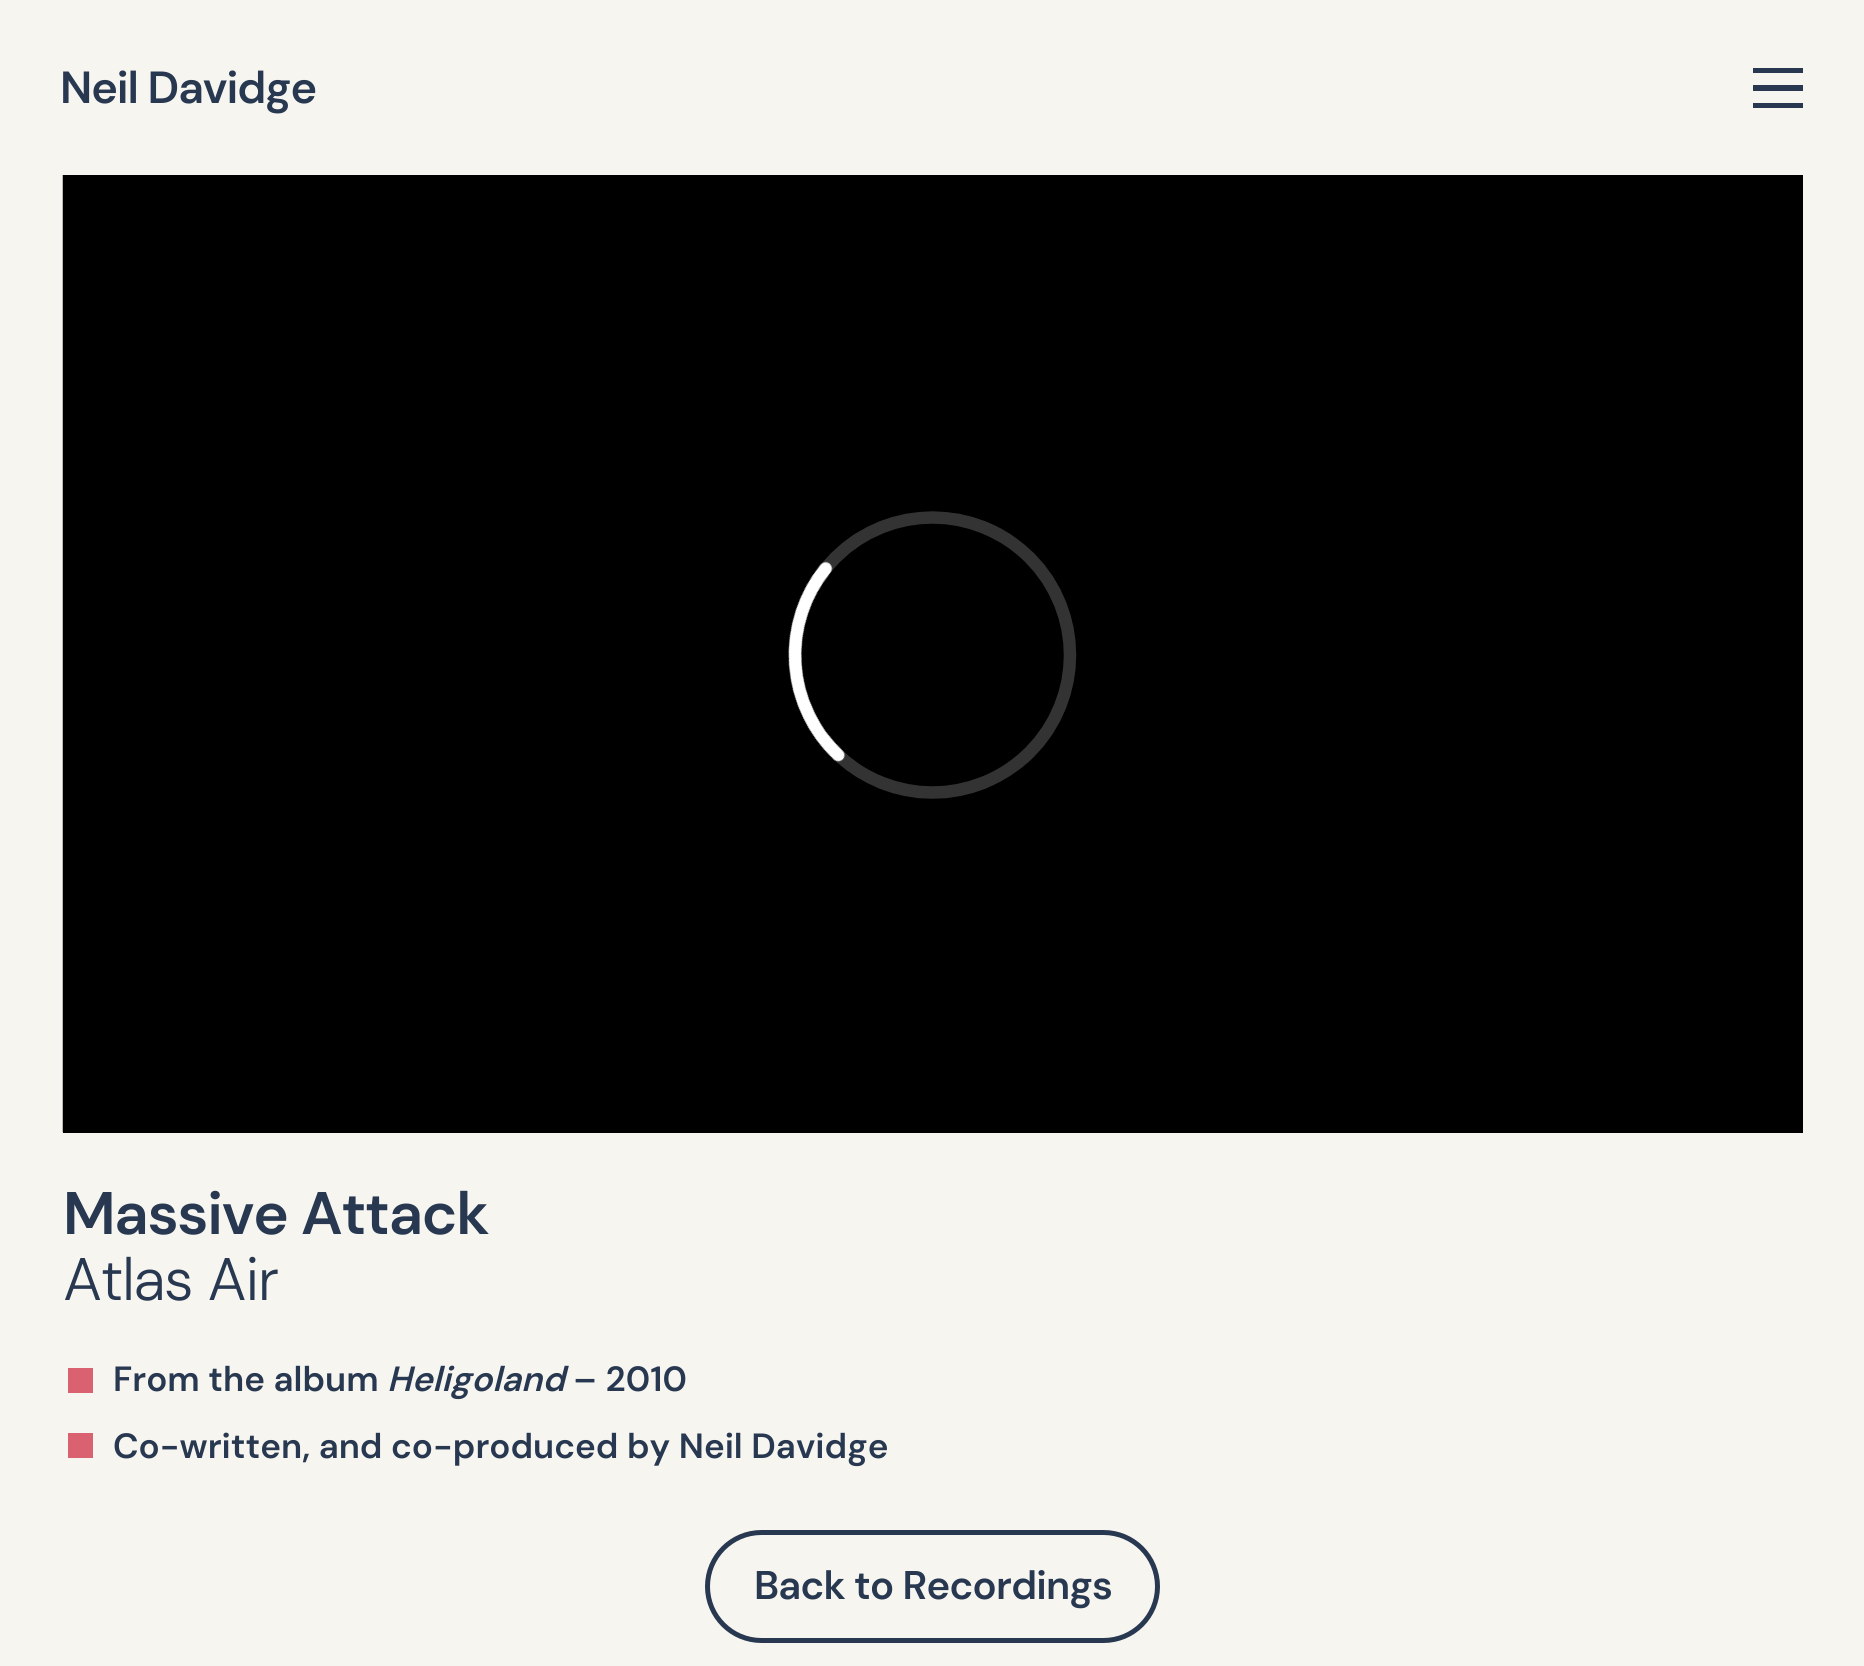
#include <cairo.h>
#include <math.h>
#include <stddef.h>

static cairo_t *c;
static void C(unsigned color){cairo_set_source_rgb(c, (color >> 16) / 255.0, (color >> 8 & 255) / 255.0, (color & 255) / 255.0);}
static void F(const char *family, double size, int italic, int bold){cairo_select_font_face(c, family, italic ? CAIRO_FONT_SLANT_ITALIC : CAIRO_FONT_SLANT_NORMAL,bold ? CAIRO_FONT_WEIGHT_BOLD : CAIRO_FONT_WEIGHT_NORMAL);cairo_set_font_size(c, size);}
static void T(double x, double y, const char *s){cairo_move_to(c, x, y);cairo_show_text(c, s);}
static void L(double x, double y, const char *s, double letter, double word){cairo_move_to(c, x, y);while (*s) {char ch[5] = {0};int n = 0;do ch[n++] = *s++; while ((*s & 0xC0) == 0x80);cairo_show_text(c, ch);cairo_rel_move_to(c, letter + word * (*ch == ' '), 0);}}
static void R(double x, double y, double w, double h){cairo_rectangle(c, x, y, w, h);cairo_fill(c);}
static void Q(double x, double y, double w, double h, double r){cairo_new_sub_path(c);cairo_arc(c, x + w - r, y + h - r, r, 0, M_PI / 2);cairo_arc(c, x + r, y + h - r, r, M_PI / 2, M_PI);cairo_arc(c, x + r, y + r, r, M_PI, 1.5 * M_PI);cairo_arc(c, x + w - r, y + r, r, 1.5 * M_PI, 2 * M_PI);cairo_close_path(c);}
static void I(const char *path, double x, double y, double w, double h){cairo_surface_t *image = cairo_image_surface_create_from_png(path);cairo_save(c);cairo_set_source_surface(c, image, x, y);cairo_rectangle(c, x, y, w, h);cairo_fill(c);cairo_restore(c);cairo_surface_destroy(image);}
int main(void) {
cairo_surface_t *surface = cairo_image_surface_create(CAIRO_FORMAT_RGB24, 1864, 1666);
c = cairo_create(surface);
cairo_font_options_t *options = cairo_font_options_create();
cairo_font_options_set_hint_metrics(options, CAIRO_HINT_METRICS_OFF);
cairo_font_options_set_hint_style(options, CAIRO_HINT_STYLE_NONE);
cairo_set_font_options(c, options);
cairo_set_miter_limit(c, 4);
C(0xf7f5f0);
cairo_paint(c);
F("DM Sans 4 SemiBold",45,0,0);
C(0x273850);
L(60,103,"Neil Davidge",-1.1,0);
R(1753,85,50,6);
R(1753,68,50,5);
R(1753,103,50,5);
C(0x000000);
R(63,175,1740,958);
I("1.png",62,175,1015,958);
F("DM Sans SemiBold",60,0,0);
C(0x273850);
L(63,1234,"Massive Attack",-1.25,0);
F("DM Sans Light",60,0,0);
L(63,1300,"Atlas Air",-1.25,0);
C(0xda6170);
R(68,1368,25,25);
F("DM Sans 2 SemiBold",35,0,0);
C(0x273850);
T(113,1391,"From the album");
F("DM Sans SemiBold",35,1,0);
T(387,1391,"Heligoland");
F("DM Sans 2 SemiBold",35,0,0);
T(573,1391,"– 2010");
C(0xda6170);
R(68,1433,25,25);
C(0x273850);
T(113,1458,"Co-written, and co-produced by Neil Davidge");
Q(707.5,1532.5,450,108,54);
cairo_set_line_width(c,5);
cairo_stroke(c);
F("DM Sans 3 SemiBold",40,0,0);
L(754,1599,"Back to Recordings",-.75,0);
cairo_surface_write_to_png(surface, "o.png");
cairo_font_options_destroy(options);
cairo_destroy(c);
cairo_surface_destroy(surface);
return 0;
}
